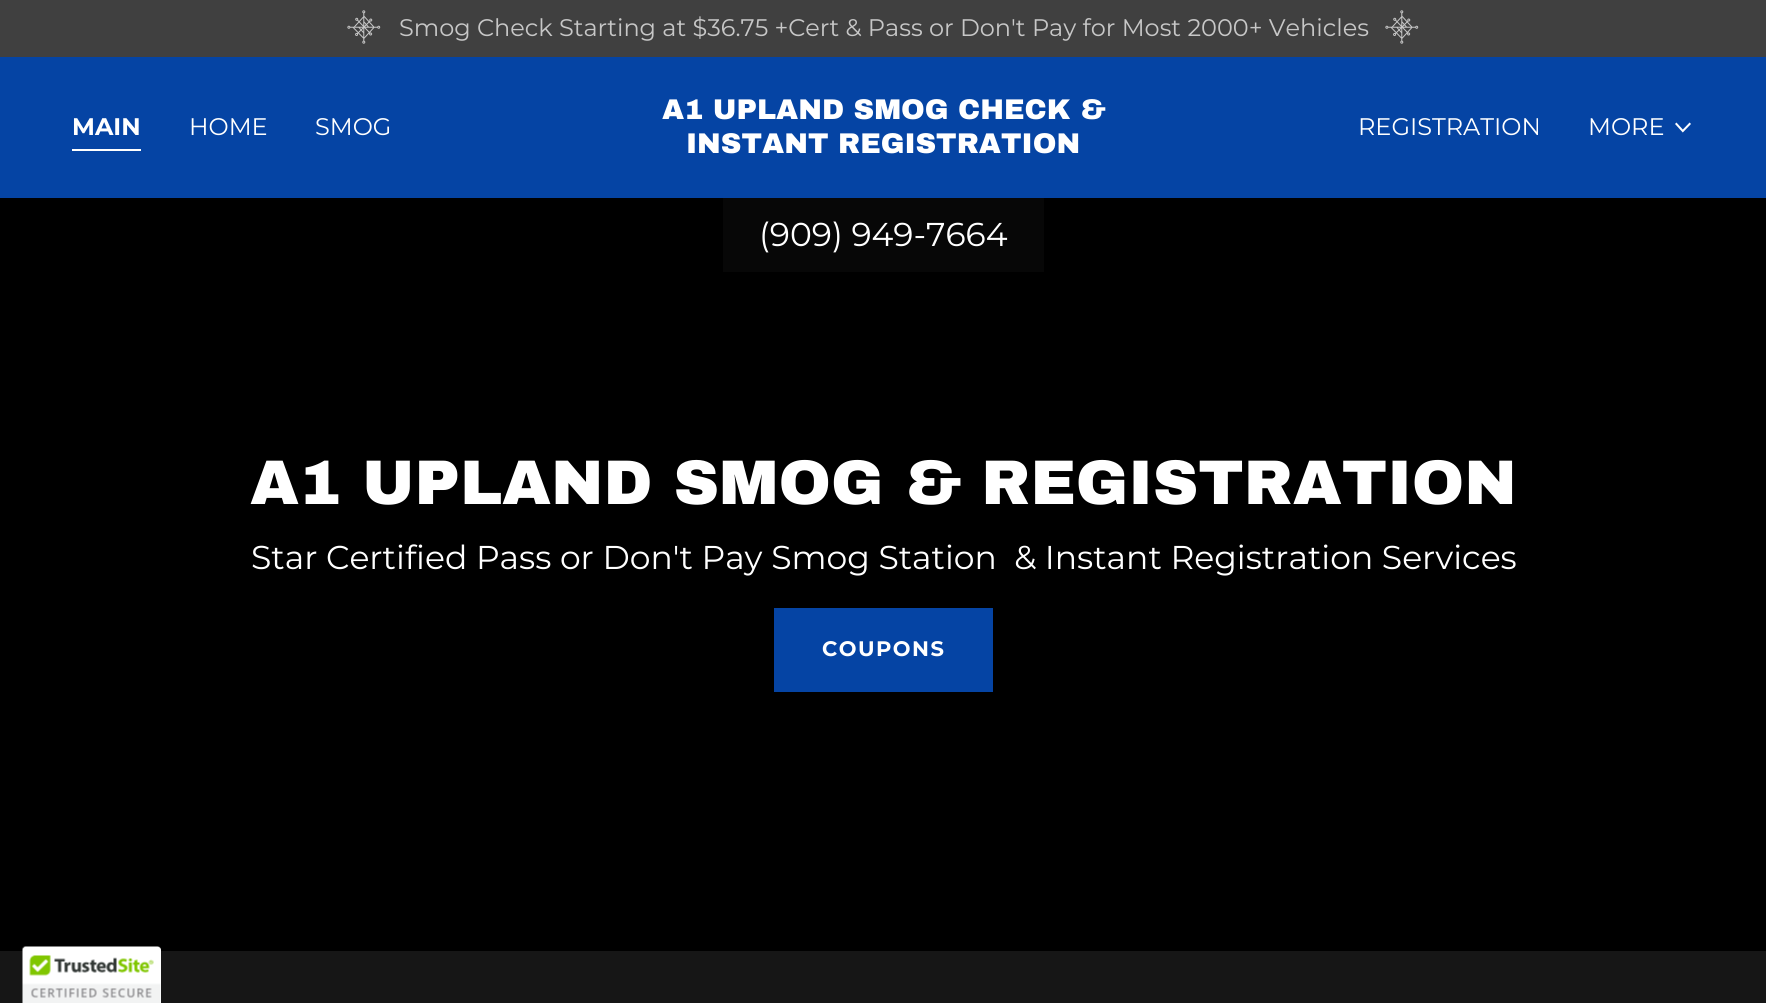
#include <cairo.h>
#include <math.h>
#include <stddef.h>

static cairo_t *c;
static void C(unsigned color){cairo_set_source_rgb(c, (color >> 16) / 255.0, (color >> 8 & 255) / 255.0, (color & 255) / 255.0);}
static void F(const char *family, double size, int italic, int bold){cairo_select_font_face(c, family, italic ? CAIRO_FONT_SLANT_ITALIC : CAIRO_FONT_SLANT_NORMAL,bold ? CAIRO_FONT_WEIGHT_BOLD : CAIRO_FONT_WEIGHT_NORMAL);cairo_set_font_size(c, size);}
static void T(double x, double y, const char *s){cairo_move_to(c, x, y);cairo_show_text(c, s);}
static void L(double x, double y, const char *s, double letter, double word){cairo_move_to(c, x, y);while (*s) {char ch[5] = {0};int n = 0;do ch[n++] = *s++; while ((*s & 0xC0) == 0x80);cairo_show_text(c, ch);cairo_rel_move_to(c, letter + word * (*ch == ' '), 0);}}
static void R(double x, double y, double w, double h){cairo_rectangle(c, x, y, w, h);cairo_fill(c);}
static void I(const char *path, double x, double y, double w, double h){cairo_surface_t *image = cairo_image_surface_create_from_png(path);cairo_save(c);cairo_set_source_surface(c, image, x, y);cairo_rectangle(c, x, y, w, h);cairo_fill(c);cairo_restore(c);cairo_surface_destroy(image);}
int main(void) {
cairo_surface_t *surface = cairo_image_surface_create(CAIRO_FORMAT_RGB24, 1766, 1003);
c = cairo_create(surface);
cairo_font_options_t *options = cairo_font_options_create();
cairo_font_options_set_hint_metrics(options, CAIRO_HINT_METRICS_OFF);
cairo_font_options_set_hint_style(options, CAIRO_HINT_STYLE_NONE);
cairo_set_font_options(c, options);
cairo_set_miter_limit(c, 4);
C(0x161616);
cairo_paint(c);
C(0x0544a4);
R(0,57,1766,141);
C(0x404040);
R(0,0,1766,57);
I("1.png",347,10,34,34);
F("Montserrat",24,0,0);
C(0xc7c7c7);
T(399,36,"Smog Check Starting at $36.75 +Cert & Pass or Don't Pay for Most 2000+ Vehicles");
I("1.png",1385,10,34,34);
C(0xffffff);
R(72,149,69,2);
F("Montserrat",24,0,1);
T(72,135,"MAIN");
F("Montserrat",24,0,0);
T(189,135,"HOME");
T(315,135,"SMOG");
F("Archivo Black Black",28.5,0,0);
T(662,119,"A1 UPLAND SMOG CHECK &");
T(686,153,"INSTANT REGISTRATION");
F("Montserrat",24,0,0);
T(1358,135,"REGISTRATION");
T(1588,135,"MORE");
I("2.png",1675,122,16,11);
C(0x000000);
R(0,198,1766,753);
C(0x070707);
R(723,198,321,74);
F("Montserrat",33,0,0);
C(0xffffff);
T(759,246,"(909) 949-7664");
F("Archivo Black Black",63,0,0);
T(250,504,"A1 UPLAND SMOG & REGISTRATION");
F("Montserrat",33,0,0);
T(251,569,"Star Certified Pass or Don't Pay Smog Station  & Instant Registration Services");
C(0x0544a4);
R(774,608,219,84);
F("Montserrat",21,0,1);
C(0xffffff);
L(822,656,"COUPONS",1.5,0);
cairo_new_path(c);
cairo_move_to(c,26,947);
cairo_line_to(c,158,947);
cairo_curve_to(c,159.5,947,161,948.5,161,950);
cairo_line_to(c,161,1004);
cairo_line_to(c,23,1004);
cairo_line_to(c,23,950);
cairo_curve_to(c,23,948.5,24.5,947,26,947);
cairo_close_path(c);
cairo_fill(c);
I("3.png",22,946,139,57);
cairo_surface_write_to_png(surface, "o.png");
cairo_font_options_destroy(options);
cairo_destroy(c);
cairo_surface_destroy(surface);
return 0;
}
